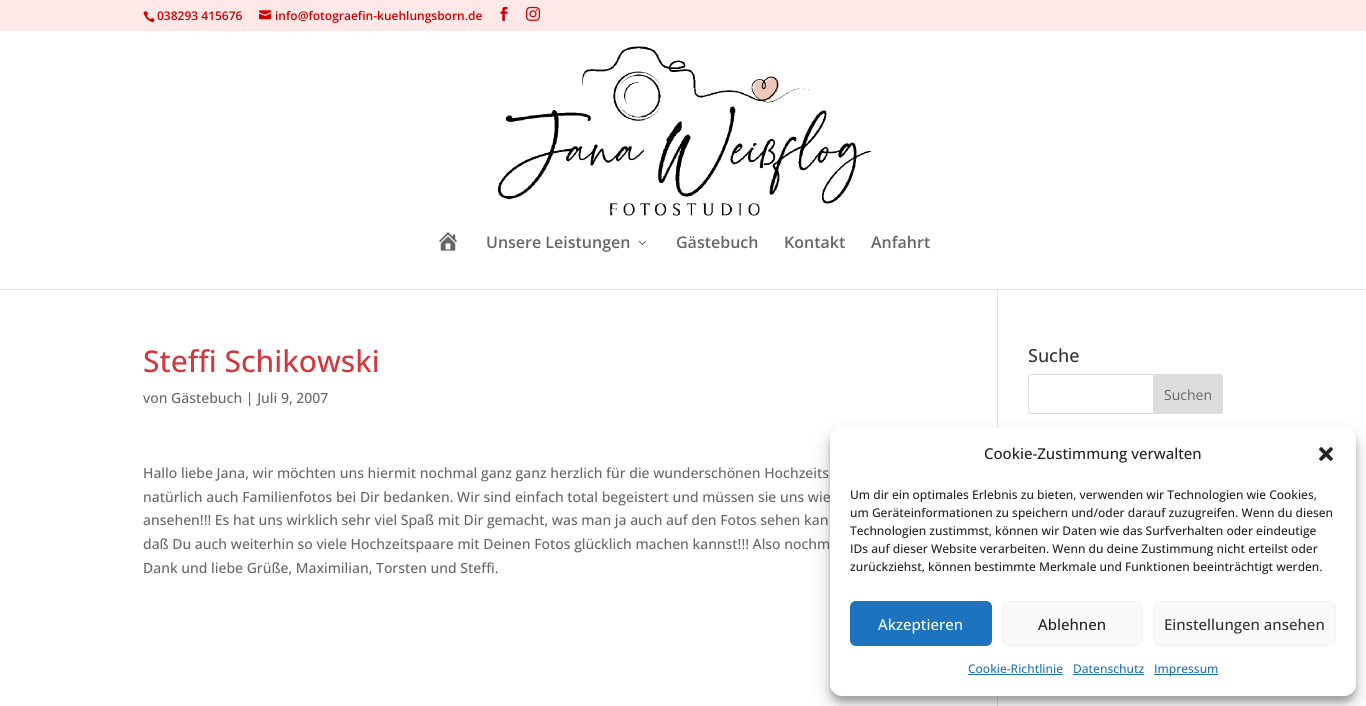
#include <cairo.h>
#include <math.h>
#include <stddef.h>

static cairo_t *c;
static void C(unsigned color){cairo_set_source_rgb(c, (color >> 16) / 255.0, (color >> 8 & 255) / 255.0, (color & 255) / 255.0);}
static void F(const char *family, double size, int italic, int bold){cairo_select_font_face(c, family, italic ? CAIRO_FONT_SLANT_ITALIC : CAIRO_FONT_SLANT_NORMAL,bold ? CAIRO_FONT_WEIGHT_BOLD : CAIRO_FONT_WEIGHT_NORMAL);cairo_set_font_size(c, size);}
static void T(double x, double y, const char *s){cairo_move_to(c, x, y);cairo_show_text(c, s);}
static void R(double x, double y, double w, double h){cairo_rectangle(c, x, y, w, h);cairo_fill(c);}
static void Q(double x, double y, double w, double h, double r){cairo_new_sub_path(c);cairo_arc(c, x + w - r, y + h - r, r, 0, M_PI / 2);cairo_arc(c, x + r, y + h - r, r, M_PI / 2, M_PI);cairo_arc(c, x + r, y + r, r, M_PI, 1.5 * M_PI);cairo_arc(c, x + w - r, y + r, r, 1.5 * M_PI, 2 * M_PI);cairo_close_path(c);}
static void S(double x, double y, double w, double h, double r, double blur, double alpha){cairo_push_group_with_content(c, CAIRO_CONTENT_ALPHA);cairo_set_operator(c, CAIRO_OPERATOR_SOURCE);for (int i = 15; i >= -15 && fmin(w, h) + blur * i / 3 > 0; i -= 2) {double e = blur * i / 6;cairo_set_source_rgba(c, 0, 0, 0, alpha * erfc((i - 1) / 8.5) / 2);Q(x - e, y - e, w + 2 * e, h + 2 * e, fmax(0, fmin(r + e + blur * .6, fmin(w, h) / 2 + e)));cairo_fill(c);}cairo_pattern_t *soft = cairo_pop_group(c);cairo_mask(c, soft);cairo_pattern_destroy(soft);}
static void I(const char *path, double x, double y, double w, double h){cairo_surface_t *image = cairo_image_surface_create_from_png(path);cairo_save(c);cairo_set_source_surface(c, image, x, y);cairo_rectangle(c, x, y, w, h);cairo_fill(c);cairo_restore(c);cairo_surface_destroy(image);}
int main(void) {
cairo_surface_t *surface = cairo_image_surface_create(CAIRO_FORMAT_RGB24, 1366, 706);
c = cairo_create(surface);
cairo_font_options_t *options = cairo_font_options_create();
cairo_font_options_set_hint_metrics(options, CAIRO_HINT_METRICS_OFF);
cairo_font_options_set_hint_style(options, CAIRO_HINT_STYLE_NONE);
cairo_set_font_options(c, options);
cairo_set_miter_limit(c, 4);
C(0xffffff);
cairo_paint(c);
C(0xe6e6e6);
R(0,289,1366,1);
C(0xffe8e8);
R(0,0,1366,31);
I("1.png",143,11,12,12);
F("Open Sans SemiBold",12,0,0);
C(0xd10000);
T(157,20,"038293 415676");
I("2.png",259,10,12,10);
T(275,20,"info@fotograefin-kuehlungsborn.de");
I("3.png",500,6,8,15);
I("4.png",526,6,14,15);
C(0xe2e2e2);
R(997,288,1,418);
C(0xffffff);
R(997,288,1,1);
I("5.png",498,46,373,170);
I("6.png",439,232,18,19);
F("Open Sans SemiBold",16,0,0);
C(0x666666);
T(486,248,"Unsere Leistungen");
I("7.png",638,240,9,5);
T(676,248,"Gästebuch");
T(784,248,"Kontakt");
T(871,248,"Anfahrt");
C(0xcbcbcb);
R(997,289,1,1);
F("Open Sans Medium",30,0,0);
C(0xd2373b);
T(143,372,"Steffi Schikowski");
F("Open Sans Medium",14,0,0);
C(0x666666);
T(143,403,"von Gästebuch | Juli 9, 2007");
T(143,478,"Hallo liebe Jana, wir möchten uns hiermit nochmal ganz ganz herzlich für die wunderschönen Hochzeits");
T(143,502,"natürlich auch Familienfotos bei Dir bedanken. Wir sind einfach total begeistert und müssen sie uns wie");
T(143,525,"ansehen!!! Es hat uns wirklich sehr viel Spaß mit Dir gemacht, was man ja auch auf den Fotos sehen kan");
T(143,549,"daß Du auch weiterhin so viele Hochzeitspaare mit Deinen Fotos glücklich machen kannst!!! Also nochm");
T(143,573,"Dank und liebe Grüße, Maximilian, Torsten und Steffi.");
F("Open Sans Medium",18,0,0);
C(0x333333);
T(1028,362,"Suche");
Q(1028.5,374.5,194,39,2.5);
C(0xdddddd);
cairo_set_line_width(c,1);
cairo_stroke(c);
cairo_new_path(c);
cairo_move_to(c,1153.5,374.5);
cairo_line_to(c,1220,374.5);
cairo_curve_to(c,1221.5,374.5,1222.5,375.5,1222.5,377);
cairo_line_to(c,1222.5,411);
cairo_curve_to(c,1222.5,412.5,1221.5,413.5,1220,413.5);
cairo_line_to(c,1153.5,413.5);
cairo_close_path(c);
cairo_fill_preserve(c);
cairo_stroke(c);
F("Open Sans",14,0,0);
C(0x666666);
T(1164,400,"Suchen");
C(0x000000);
S(830,433,526,269,12,3,.23);
S(830,437,526,269,12,10,.19);
C(0xffffff);
Q(830,427,526,269,12);
cairo_fill(c);
F("Open Sans Medium",15,0,0);
C(0x222222);
T(984,459,"Cookie-Zustimmung verwalten");
I("8.png",1319,447,14,14);
F("Open Sans Medium",12,0,0);
T(850,499,"Um dir ein optimales Erlebnis zu bieten, verwenden wir Technologien wie Cookies,");
T(850,517,"um Geräteinformationen zu speichern und/oder darauf zuzugreifen. Wenn du diesen");
T(850,535,"Technologien zustimmst, können wir Daten wie das Surfverhalten oder eindeutige");
T(850,553,"IDs auf dieser Website verarbeiten. Wenn du deine Zustimmung nicht erteilst oder");
T(850,571,"zurückziehst, können bestimmte Merkmale und Funktionen beeinträchtigt werden.");
C(0x1e73be);
Q(850.5,601.5,141,44,5.5);
cairo_fill_preserve(c);
cairo_stroke(c);
F("Open Sans Medium",15,0,0);
C(0xffffff);
T(878,630,"Akzeptieren");
C(0xf9f9f9);
Q(1002.5,601.5,140,44,5.5);
cairo_fill_preserve(c);
C(0xf2f2f2);
cairo_stroke(c);
C(0x222222);
T(1038,630,"Ablehnen");
C(0xf9f9f9);
Q(1153.5,601.5,182,44,5.5);
cairo_fill_preserve(c);
C(0xf2f2f2);
cairo_stroke(c);
C(0x333333);
T(1164,630,"Einstellungen ansehen");
F("Open Sans Medium",12,0,0);
C(0x1e73be);
T(968,673,"Cookie-Richtlinie");
R(968,674,95,1);
T(1073,673,"Datenschutz");
R(1073,674,71,1);
R(1154,674,64,1);
T(1154,673,"Impressum");
cairo_surface_write_to_png(surface, "o.png");
cairo_font_options_destroy(options);
cairo_destroy(c);
cairo_surface_destroy(surface);
return 0;
}
